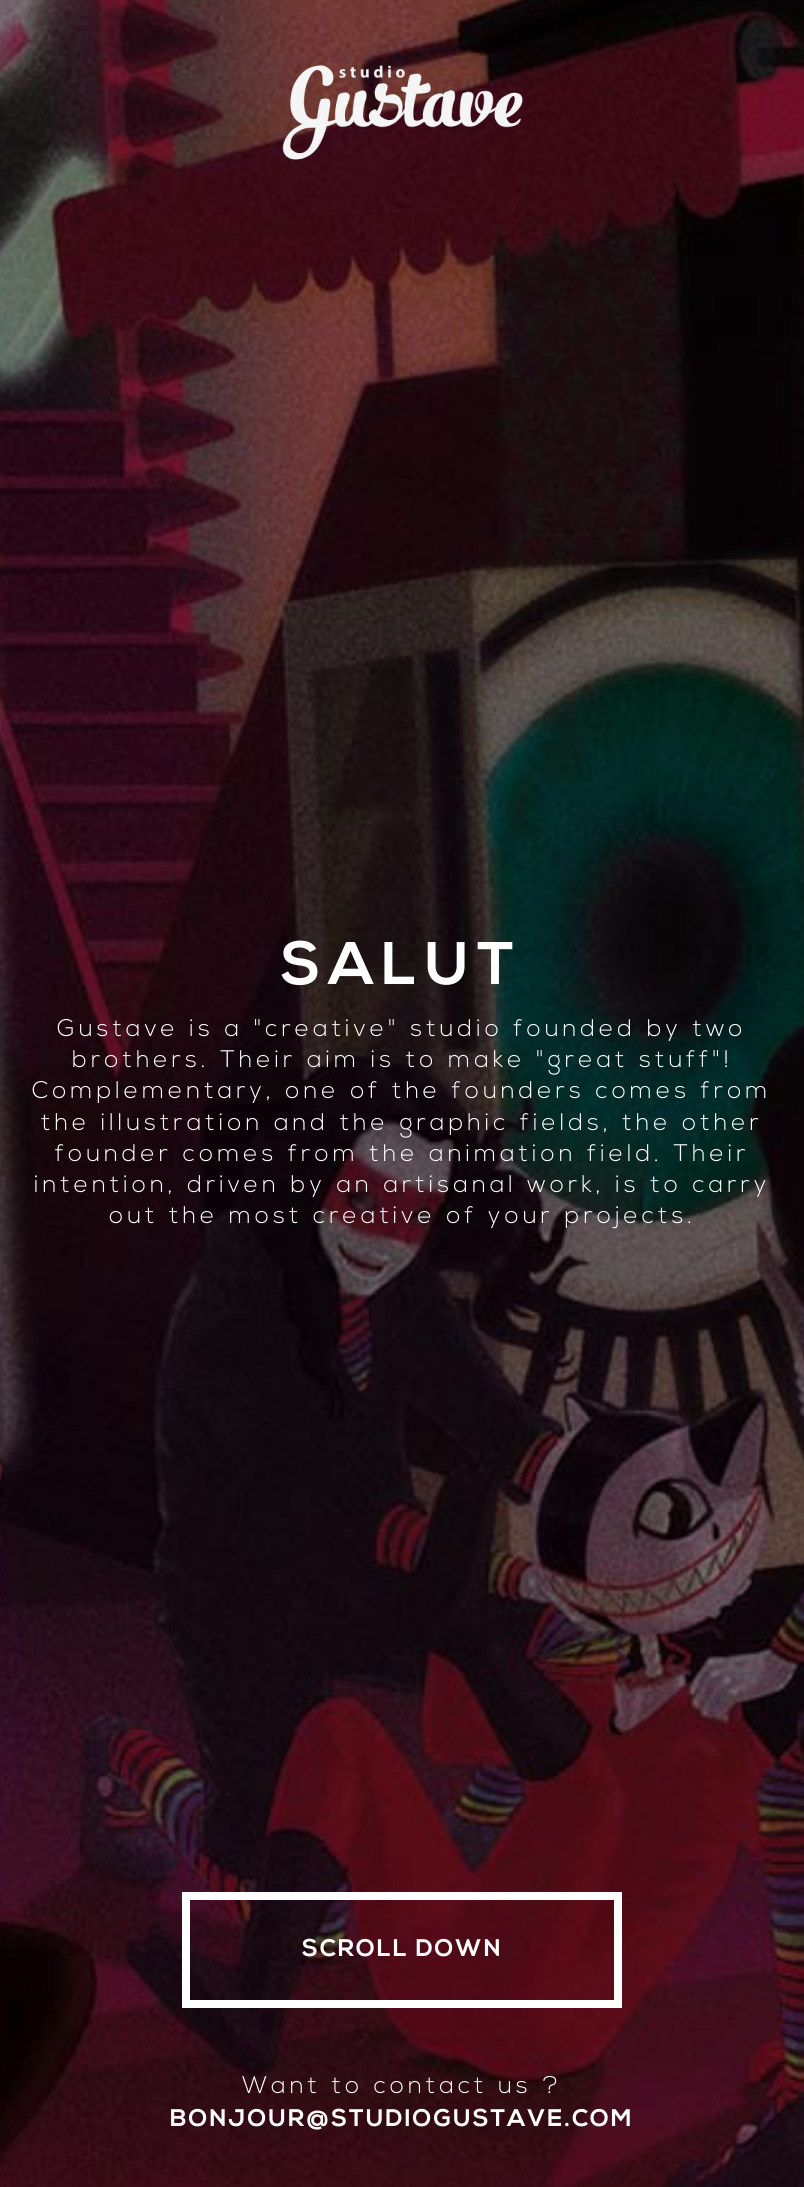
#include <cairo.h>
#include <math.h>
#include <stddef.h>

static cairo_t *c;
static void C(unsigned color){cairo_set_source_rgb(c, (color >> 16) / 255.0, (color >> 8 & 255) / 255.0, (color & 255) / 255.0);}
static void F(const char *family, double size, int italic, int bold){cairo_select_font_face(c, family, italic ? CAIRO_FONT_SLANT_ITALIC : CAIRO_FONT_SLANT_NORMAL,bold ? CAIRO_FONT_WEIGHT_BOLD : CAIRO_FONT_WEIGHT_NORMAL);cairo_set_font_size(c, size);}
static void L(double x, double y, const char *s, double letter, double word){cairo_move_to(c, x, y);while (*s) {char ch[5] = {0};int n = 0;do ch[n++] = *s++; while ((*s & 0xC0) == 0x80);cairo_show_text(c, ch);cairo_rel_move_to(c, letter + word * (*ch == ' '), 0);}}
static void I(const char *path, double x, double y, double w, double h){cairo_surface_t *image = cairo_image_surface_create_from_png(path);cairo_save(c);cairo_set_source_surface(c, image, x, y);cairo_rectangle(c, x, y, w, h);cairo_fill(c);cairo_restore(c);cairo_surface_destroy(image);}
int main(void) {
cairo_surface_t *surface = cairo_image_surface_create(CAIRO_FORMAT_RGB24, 804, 2187);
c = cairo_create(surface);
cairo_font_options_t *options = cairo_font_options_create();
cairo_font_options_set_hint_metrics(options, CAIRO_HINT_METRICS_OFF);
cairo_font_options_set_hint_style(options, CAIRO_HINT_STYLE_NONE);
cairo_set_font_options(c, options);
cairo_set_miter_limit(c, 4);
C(0xffffff);
cairo_paint(c);
I("2.png",0,0,804,2187);
I("1.png",282,65,241,95);
F("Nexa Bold",60,0,1);
C(0xffffff);
L(281,984,"SALUT",8,0);
F("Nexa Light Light",24,0,0);
L(57,1036,"Gustave is a \"creative\" studio founded by two",4,0);
L(72,1067,"brothers. Their aim is to make \"great stuff\"!",4,0);
L(32,1098,"Complementary, one of the founders comes from",4,0);
L(41,1130,"the illustration and the graphic fields, the other",4,0);
L(55,1161,"founder comes from the animation field. Their",4,0);
L(34,1192,"intention, driven by an artisanal work, is to carry",4,0);
L(109,1223,"out the most creative of your projects.",4,0);
cairo_rectangle(c,186,1896,432,108);
cairo_set_line_width(c,8);
cairo_stroke(c);
F("Nexa Bold",24,0,1);
L(302,1956,"SCROLL DOWN",2,0);
F("Nexa Light Light",24,0,0);
L(242,2093,"Want to contact us ?",4,0);
F("Nexa Bold",24,0,1);
L(170,2126,"BONJOUR@STUDIOGUSTAVE.COM",2,0);
cairo_surface_write_to_png(surface, "o.png");
cairo_font_options_destroy(options);
cairo_destroy(c);
cairo_surface_destroy(surface);
return 0;
}
